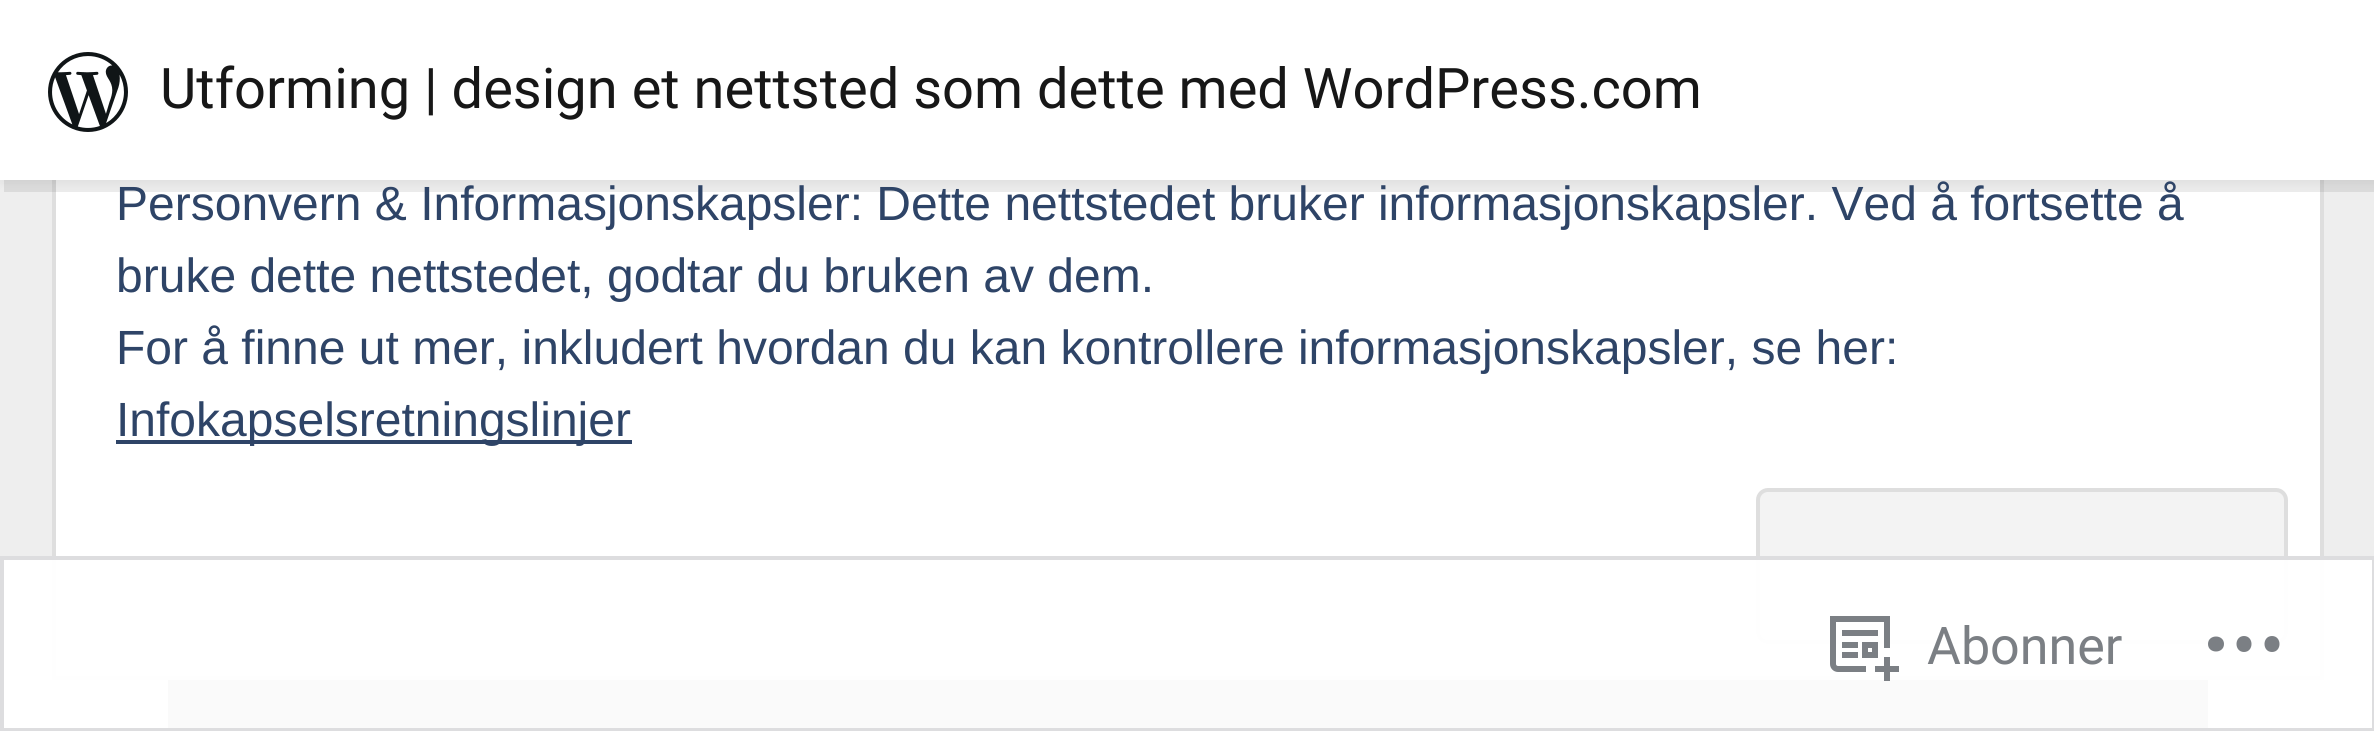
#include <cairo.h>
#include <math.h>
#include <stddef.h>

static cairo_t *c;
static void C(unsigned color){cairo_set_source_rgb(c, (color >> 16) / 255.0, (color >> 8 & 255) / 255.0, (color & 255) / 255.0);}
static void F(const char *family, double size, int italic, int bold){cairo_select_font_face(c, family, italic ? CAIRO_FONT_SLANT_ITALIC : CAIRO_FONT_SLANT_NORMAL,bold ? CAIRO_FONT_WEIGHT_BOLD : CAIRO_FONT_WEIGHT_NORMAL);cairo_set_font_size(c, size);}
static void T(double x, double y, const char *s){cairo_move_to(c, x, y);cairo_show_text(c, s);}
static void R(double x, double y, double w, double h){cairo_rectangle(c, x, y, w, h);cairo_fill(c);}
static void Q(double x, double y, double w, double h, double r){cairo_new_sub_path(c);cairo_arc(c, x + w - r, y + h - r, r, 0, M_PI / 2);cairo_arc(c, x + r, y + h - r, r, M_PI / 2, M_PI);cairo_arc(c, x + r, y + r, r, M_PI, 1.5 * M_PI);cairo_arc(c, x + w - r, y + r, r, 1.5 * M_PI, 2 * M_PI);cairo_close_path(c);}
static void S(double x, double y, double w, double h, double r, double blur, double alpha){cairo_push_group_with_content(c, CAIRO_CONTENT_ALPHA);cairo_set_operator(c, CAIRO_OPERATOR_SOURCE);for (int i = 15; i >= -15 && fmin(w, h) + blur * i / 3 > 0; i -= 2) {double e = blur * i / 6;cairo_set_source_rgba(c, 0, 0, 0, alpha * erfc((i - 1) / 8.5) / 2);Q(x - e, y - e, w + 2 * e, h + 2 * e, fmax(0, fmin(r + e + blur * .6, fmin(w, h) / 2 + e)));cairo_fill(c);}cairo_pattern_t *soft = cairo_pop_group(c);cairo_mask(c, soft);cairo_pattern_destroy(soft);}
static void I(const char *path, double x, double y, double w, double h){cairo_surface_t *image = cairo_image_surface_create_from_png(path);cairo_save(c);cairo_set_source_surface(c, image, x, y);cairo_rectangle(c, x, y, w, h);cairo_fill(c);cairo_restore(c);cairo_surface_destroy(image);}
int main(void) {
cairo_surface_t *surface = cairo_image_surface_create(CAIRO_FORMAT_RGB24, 2374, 731);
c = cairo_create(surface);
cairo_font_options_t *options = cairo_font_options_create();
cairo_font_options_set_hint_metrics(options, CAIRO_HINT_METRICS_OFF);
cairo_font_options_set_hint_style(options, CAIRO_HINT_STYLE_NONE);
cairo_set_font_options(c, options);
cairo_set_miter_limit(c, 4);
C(0xeeeeee);
cairo_paint(c);
C(0xffffff);
R(56,180,2264,496);
cairo_rectangle(c,54,142,2268,536);
C(0xdedede);
cairo_set_line_width(c,4);
cairo_stroke(c);
C(0x000000);
S(0,4,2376,180,0,4,.05);
cairo_set_source_rgba(c,0,0,0,0.08);
cairo_new_path(c);
cairo_move_to(c,4,180);
cairo_line_to(c,4,192);
cairo_line_to(c,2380,192);
cairo_line_to(c,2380,12);
cairo_line_to(c,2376,12);
cairo_line_to(c,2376,180);
cairo_close_path(c);
cairo_fill(c);
C(0xffffff);
R(0,0,2374,180);
I("1.png",48,52,80,80);
F("Roboto",56,0,0);
C(0x171717);
T(160,108,"Utforming | design et nettsted som dette med WordPress.com");
F("Liberation Sans",48,0,0);
C(0x2e4467);
T(116,220,"Personvern & Informasjonskapsler: Dette nettstedet bruker informasjonskapsler. Ved å fortsette å");
T(116,292,"bruke dette nettstedet, godtar du bruken av dem.");
T(116,364,"For å finne ut mer, inkludert hvordan du kan kontrollere informasjonskapsler, se her:");
R(116,440,516,4);
T(116,436,"Infokapselsretningslinjer");
C(0xf3f3f3);
Q(1758,490,528,152,10);
cairo_fill_preserve(c);
C(0xdedede);
cairo_stroke(c);
C(0x000000);
R(168,680,2040,51);
cairo_set_source_rgba(c,1,1,1,0.98);
R(0,556,2374,175);
cairo_rectangle(c,2,558,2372,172);
cairo_set_source_rgba(c,0.863,0.863,0.871,0.98);
cairo_stroke(c);
I("2.png",1830,616,69,65);
F("Roboto",52,0,0);
C(0x7b7f84);
T(1927,664,"Abonner");
cairo_new_path(c);
cairo_move_to(c,2224,644);
cairo_curve_to(c,2224,654,2208,654,2208,644);
cairo_curve_to(c,2208,634,2224,634,2224,644);
cairo_close_path(c);
cairo_move_to(c,2272,636);
cairo_curve_to(c,2262,636,2262,652,2272,652);
cairo_curve_to(c,2282,652,2282,636,2272,636);
cairo_close_path(c);
cairo_move_to(c,2244,636);
cairo_curve_to(c,2234,636,2234,652,2244,652);
cairo_curve_to(c,2254,652,2254,636,2244,636);
cairo_close_path(c);
cairo_fill(c);
cairo_surface_write_to_png(surface, "o.png");
cairo_font_options_destroy(options);
cairo_destroy(c);
cairo_surface_destroy(surface);
return 0;
}
